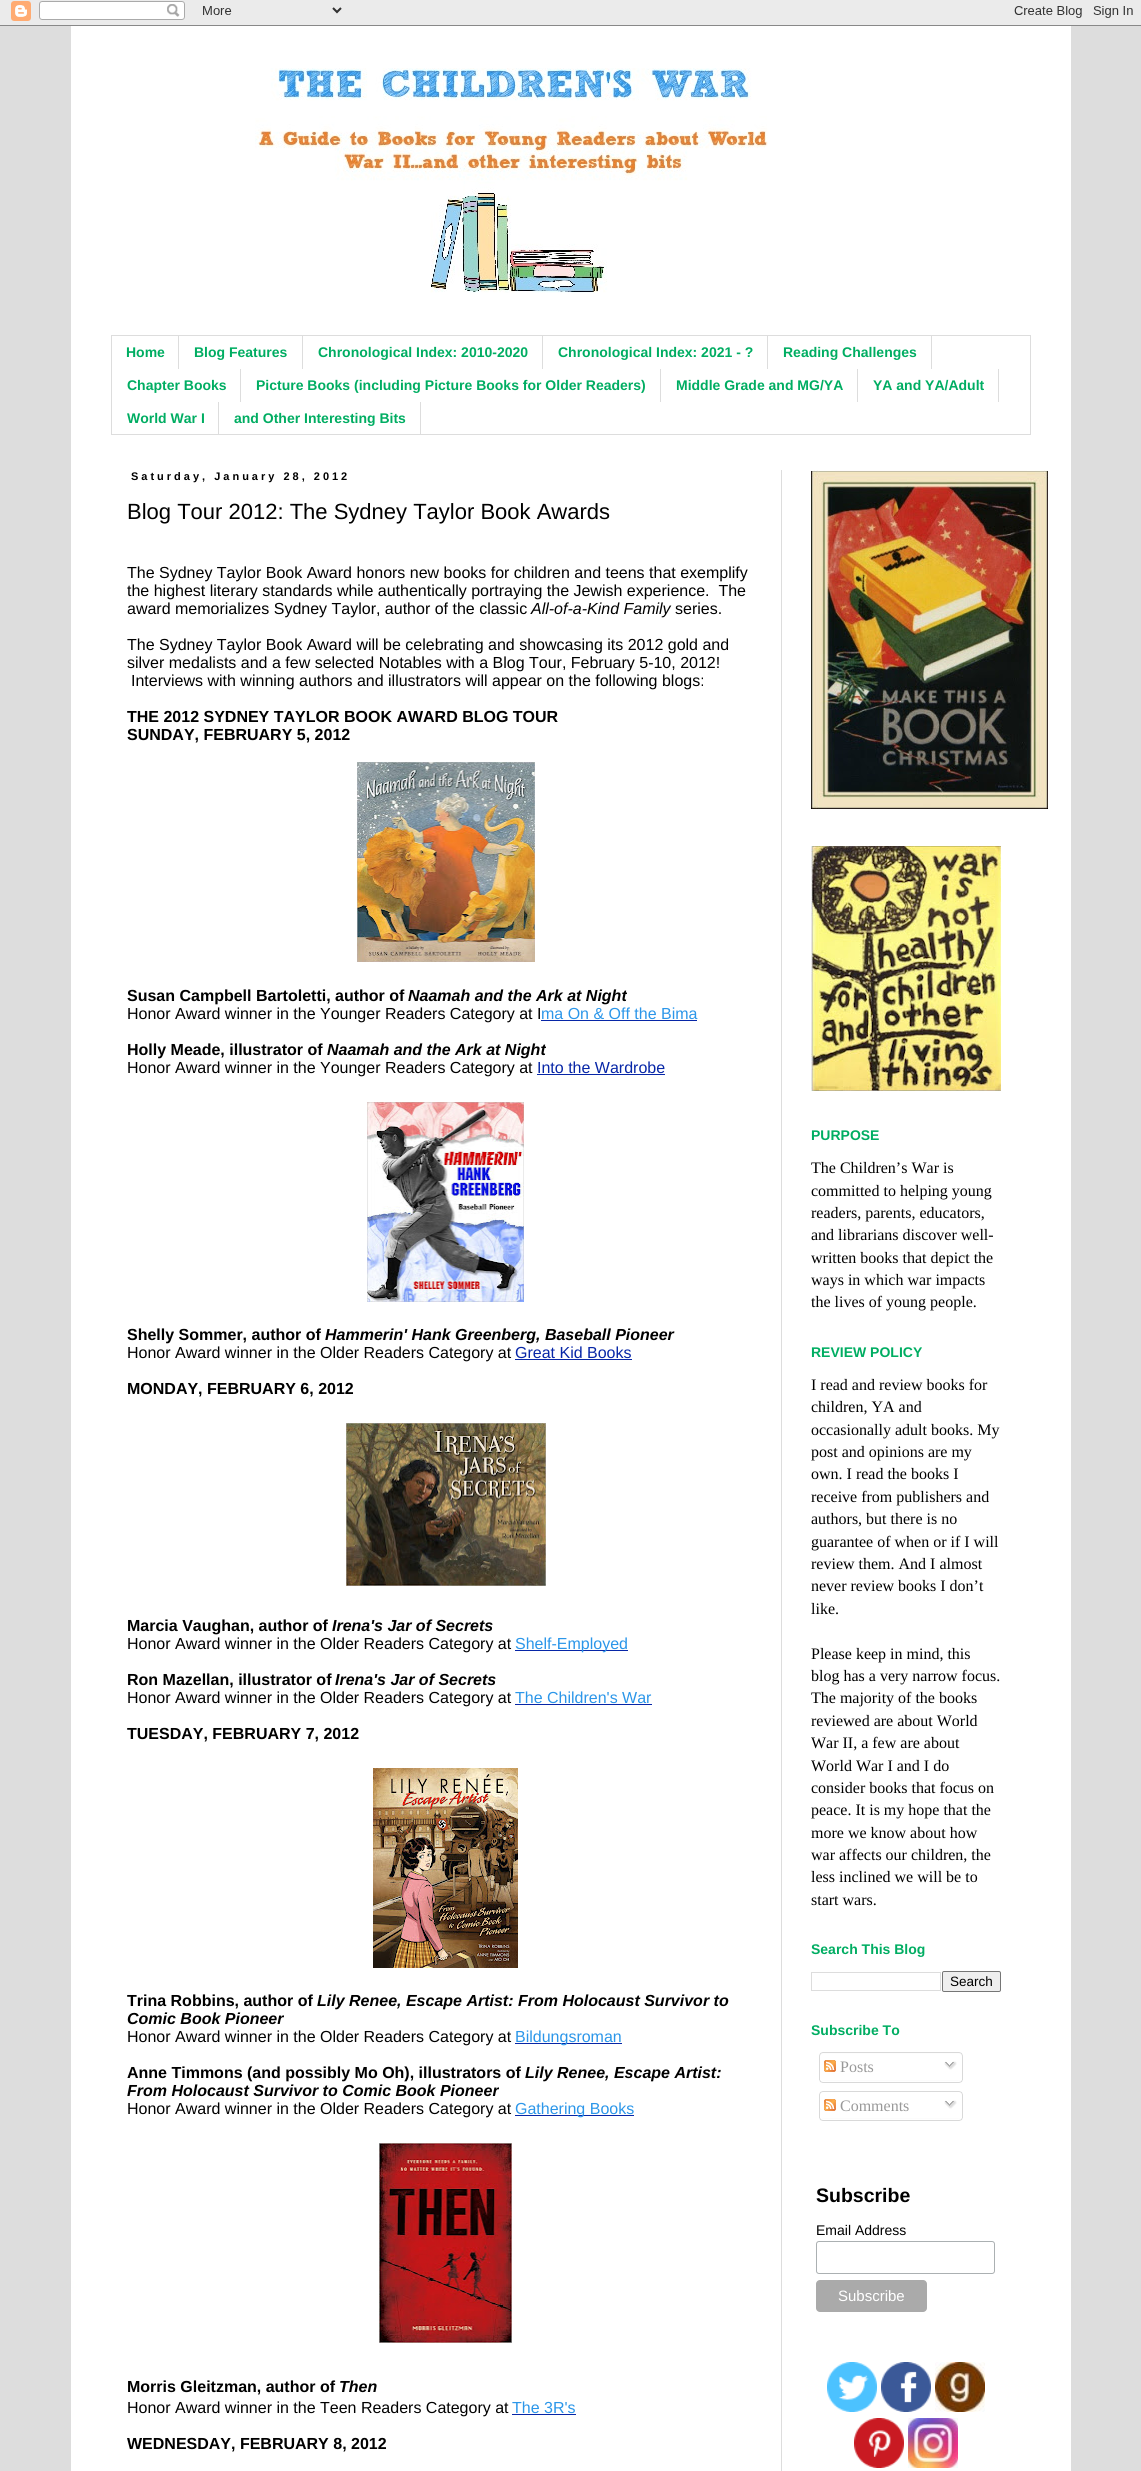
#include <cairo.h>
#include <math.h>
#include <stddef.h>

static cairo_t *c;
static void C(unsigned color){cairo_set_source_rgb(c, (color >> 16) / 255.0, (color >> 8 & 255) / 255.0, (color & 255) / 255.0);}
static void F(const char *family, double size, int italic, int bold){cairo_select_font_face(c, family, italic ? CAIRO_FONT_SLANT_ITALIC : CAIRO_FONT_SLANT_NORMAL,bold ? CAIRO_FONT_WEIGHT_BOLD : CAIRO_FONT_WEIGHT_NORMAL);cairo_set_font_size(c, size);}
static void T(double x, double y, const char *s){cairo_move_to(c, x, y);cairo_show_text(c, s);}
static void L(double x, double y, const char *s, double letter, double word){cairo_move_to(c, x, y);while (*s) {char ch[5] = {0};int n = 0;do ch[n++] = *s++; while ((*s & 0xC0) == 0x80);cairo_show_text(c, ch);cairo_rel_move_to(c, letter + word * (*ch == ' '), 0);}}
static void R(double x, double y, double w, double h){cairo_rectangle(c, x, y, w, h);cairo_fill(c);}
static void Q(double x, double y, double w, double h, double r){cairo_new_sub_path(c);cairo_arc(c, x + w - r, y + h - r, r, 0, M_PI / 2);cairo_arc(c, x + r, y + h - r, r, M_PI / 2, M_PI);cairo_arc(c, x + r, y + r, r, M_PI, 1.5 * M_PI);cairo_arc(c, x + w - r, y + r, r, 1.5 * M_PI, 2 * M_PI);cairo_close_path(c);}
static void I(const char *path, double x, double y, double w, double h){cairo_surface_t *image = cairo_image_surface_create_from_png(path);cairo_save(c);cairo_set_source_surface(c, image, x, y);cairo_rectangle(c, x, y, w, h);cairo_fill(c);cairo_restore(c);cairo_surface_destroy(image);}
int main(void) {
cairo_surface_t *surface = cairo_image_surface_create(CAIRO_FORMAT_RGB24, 1141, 2471);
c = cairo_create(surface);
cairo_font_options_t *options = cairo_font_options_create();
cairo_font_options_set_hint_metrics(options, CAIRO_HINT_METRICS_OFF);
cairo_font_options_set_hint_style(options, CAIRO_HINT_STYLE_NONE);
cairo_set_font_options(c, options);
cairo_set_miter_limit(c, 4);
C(0xdddddd);
cairo_paint(c);
I("1.png",0,0,1141,26);
C(0xffffff);
R(71,26,1000,2445);
I("2.png",255,68,513,225);
cairo_rectangle(c,111.5,335.5,919,99);
C(0xdddddd);
cairo_set_line_width(c,1);
cairo_stroke(c);
R(178,336,1,33);
F("Liberation Sans",14,0,1);
C(0x00ad62);
T(126,357,"Home");
C(0xdddddd);
R(302,336,1,33);
C(0x00ad62);
T(194,357,"Blog Features");
C(0xdddddd);
R(542,336,1,33);
C(0x00ad62);
T(318,357,"Chronological Index: 2010-2020");
C(0xdddddd);
R(767,336,1,33);
C(0x00ad62);
T(558,357,"Chronological Index: 2021 - ?");
C(0xdddddd);
R(931,336,1,33);
C(0x00ad62);
T(783,357,"Reading Challenges");
C(0xdddddd);
R(240,369,1,33);
C(0x00ad62);
T(127,390,"Chapter Books");
C(0xdddddd);
R(660,369,1,33);
C(0x00ad62);
T(256,390,"Picture Books (including Picture Books for Older Readers)");
C(0xdddddd);
R(857,369,1,33);
C(0x00ad62);
T(676,390,"Middle Grade and MG/YA");
C(0xdddddd);
R(998,369,1,33);
C(0x00ad62);
T(873,390,"YA and YA/Adult");
C(0xdddddd);
R(218,402,1,32);
C(0x00ad62);
T(127,423,"World War I");
C(0xdddddd);
R(420,402,1,32);
C(0x00ad62);
T(234,423,"and Other Interesting Bits");
C(0xdddddd);
R(781,470,1,2001);
F("Liberation Sans",11,0,1);
C(0x000000);
L(131,480,"Saturday, January 28, 2012",3,0);
F("Liberation Sans",22,0,0);
T(127,519,"Blog Tour 2012: The Sydney Taylor Book Awards");
F("Liberation Sans",16,0,0);
T(127,578,"The Sydney Taylor Book Award honors new books for children and teens that exemplify");
T(127,596,"the highest literary standards while authentically portraying the Jewish experience.  The");
T(127,614,"award memorializes Sydney Taylor, author of the classic");
F("Liberation Sans",16,1,0);
T(531,614,"All-of-a-Kind Family");
F("Liberation Sans",16,0,0);
T(675,614,"series.");
T(127,650,"The Sydney Taylor Book Award will be celebrating and showcasing its 2012 gold and");
T(127,668,"silver medalists and a few selected Notables with a Blog Tour, February 5-10, 2012!");
T(131,686,"Interviews with winning authors and illustrators will appear on the following blogs:");
F("Liberation Sans",16,0,1);
T(127,722,"THE 2012 SYDNEY TAYLOR BOOK AWARD BLOG TOUR");
T(127,740,"SUNDAY, FEBRUARY 5, 2012");
I("3.png",357,762,178,200);
T(127,1001,"Susan Campbell Bartoletti, author of");
F("Liberation Sans",16,1,1);
T(408,1001,"Naamah and the Ark at Night");
F("Liberation Sans",16,0,0);
T(127,1019,"Honor Award winner in the Younger Readers Category at I");
C(0x0726a7);
R(541,1020,156,1);
C(0x2b96e9);
T(541,1019,"ma On & Off the Bima");
F("Liberation Sans",16,0,1);
C(0x000000);
T(127,1055,"Holly Meade, illustrator of");
F("Liberation Sans",16,1,1);
T(327,1055,"Naamah and the Ark at Night");
F("Liberation Sans",16,0,0);
T(127,1073,"Honor Award winner in the Younger Readers Category at");
C(0x0726a7);
T(537,1073,"Into the Wardrobe");
R(537,1074,128,1);
I("4.png",367,1102,157,200);
F("Liberation Sans",16,0,1);
C(0x000000);
T(127,1340,"Shelly Sommer, author of");
F("Liberation Sans",16,1,1);
T(325,1340,"Hammerin' Hank Greenberg, Baseball Pioneer");
F("Liberation Sans",16,0,0);
T(127,1358,"Honor Award winner in the Older Readers Category at");
C(0x0726a7);
T(515,1358,"Great Kid Books");
R(515,1359,117,1);
F("Liberation Sans",16,0,1);
C(0x000000);
T(127,1394,"MONDAY, FEBRUARY 6, 2012");
I("5.png",346,1423,200,163);
T(127,1631,"Marcia Vaughan, author of");
F("Liberation Sans",16,1,1);
T(332,1631,"Irena's Jar of Secrets");
F("Liberation Sans",16,0,0);
T(127,1649,"Honor Award winner in the Older Readers Category at");
C(0x0726a7);
R(515,1650,113,1);
C(0x2b96e9);
T(515,1649,"Shelf-Employed");
F("Liberation Sans",16,0,1);
C(0x000000);
T(127,1685,"Ron Mazellan, illustrator of");
F("Liberation Sans",16,1,1);
T(335,1685,"Irena's Jar of Secrets");
F("Liberation Sans",16,0,0);
T(127,1703,"Honor Award winner in the Older Readers Category at");
C(0x2b96e9);
T(515,1703,"The Children's War");
C(0x0726a7);
R(515,1704,137,1);
F("Liberation Sans",16,0,1);
C(0x000000);
T(127,1739,"TUESDAY, FEBRUARY 7, 2012");
I("6.png",373,1768,145,200);
T(127,2006,"Trina Robbins, author of");
F("Liberation Sans",16,1,1);
T(317,2006,"Lily Renee, Escape Artist: From Holocaust Survivor to");
T(127,2024,"Comic Book Pioneer");
F("Liberation Sans",16,0,0);
T(127,2042,"Honor Award winner in the Older Readers Category at");
C(0x0726a7);
R(515,2043,107,1);
C(0x2b96e9);
T(515,2042,"Bildungsroman");
F("Liberation Sans",16,0,1);
C(0x000000);
T(127,2078,"Anne Timmons (and possibly Mo Oh), illustrators of");
F("Liberation Sans",16,1,1);
T(525,2078,"Lily Renee, Escape Artist:");
T(127,2096,"From Holocaust Survivor to Comic Book Pioneer");
F("Liberation Sans",16,0,0);
T(127,2114,"Honor Award winner in the Older Readers Category at");
C(0x0726a7);
R(515,2115,119,1);
C(0x2b96e9);
T(515,2114,"Gathering Books");
I("7.png",379,2143,133,200);
F("Liberation Sans",16,0,1);
C(0x000000);
T(127,2392,"Morris Gleitzman, author of");
F("Liberation Sans",16,1,1);
T(339,2392,"Then");
F("Liberation Sans",16,0,0);
T(127,2413,"Honor Award winner in the Teen Readers Category at");
C(0x2b96e9);
T(512,2413,"The 3R's");
C(0x0726a7);
R(512,2414,64,1);
F("Liberation Sans",16,0,1);
C(0x000000);
T(127,2449,"WEDNESDAY, FEBRUARY 8, 2012");
I("8.png",811,470,237,339);
I("9.png",811,846,190,245);
F("Liberation Sans",14,0,1);
C(0x00ad62);
T(811,1140,"PURPOSE");
F("Liberation Serif",16,0,0);
C(0x000000);
T(811,1173,"The Children’s War is");
T(811,1196,"committed to helping young");
T(811,1218,"readers, parents, educators,");
T(811,1240,"and librarians discover well-");
T(811,1263,"written books that depict the");
T(811,1285,"ways in which war impacts");
T(811,1307,"the lives of young people.");
F("Liberation Sans",14,0,1);
C(0x00ad62);
T(811,1357,"REVIEW POLICY");
F("Liberation Serif",16,0,0);
C(0x000000);
T(811,1390,"I read and review books for");
T(811,1412,"children, YA and");
T(811,1435,"occasionally adult books. My");
T(811,1457,"post and opinions are my");
T(811,1479,"own. I read the books I");
T(811,1502,"receive from publishers and");
T(811,1524,"authors, but there is no");
T(811,1547,"guarantee of when or if I will");
T(811,1569,"review them. And I almost");
T(811,1591,"never review books I don’t");
T(811,1614,"like.");
T(811,1659,"Please keep in mind, this");
T(811,1681,"blog has a very narrow focus.");
T(811,1703,"The majority of the books");
T(811,1726,"reviewed are about World");
T(811,1748,"War II, a few are about");
T(811,1771,"World War I and I do");
T(811,1793,"consider books that focus on");
T(811,1815,"peace. It is my hope that the");
T(811,1838,"more we know about how");
T(811,1860,"war affects our children, the");
T(811,1882,"less inclined we will be to");
T(811,1905,"start wars.");
F("Liberation Sans",14,0,1);
C(0x00ad62);
T(811,1954,"Search This Blog");
cairo_rectangle(c,811.5,1972.5,129,18);
C(0xdddddd);
cairo_stroke(c);
C(0xefefef);
Q(942.5,1971.5,58,20,1.5);
cairo_fill_preserve(c);
C(0x767676);
cairo_stroke(c);
F("Liberation Sans",13.5,0,0);
C(0x000000);
T(950,1986,"Search");
F("Liberation Sans",14,0,1);
C(0x00ad62);
T(811,2035,"Subscribe To");
I("10.png",819,2052,144,28);
I("11.png",824,2060,12,12);
F("Liberation Serif",16,0,0);
C(0x999999);
T(840,2072,"Posts");
I("12.png",944,2061,13,9);
I("13.png",819,2080,144,3);
I("14.png",819,2091,144,27);
I("11.png",824,2099,12,12);
T(840,2111,"Comments");
I("12.png",944,2100,13,9);
I("13.png",819,2118,144,3);
F("Liberation Sans",19.5,0,1);
C(0x000000);
T(816,2202,"Subscribe");
F("Liberation Sans",14,0,0);
T(816,2235,"Email Address");
Q(816.5,2241.5,178,32,2.5);
C(0xabb0b2);
cairo_stroke(c);
C(0xaaaaaa);
Q(816,2280,111,32,4);
cairo_fill(c);
F("Liberation Sans",15,0,0);
C(0xffffff);
T(838,2301,"Subscribe");
I("15.png",827,2362,50,50);
I("16.png",881,2362,50,50);
I("17.png",935,2362,50,50);
I("18.png",854,2418,50,50);
I("19.png",908,2418,50,50);
cairo_surface_write_to_png(surface, "o.png");
cairo_font_options_destroy(options);
cairo_destroy(c);
cairo_surface_destroy(surface);
return 0;
}
